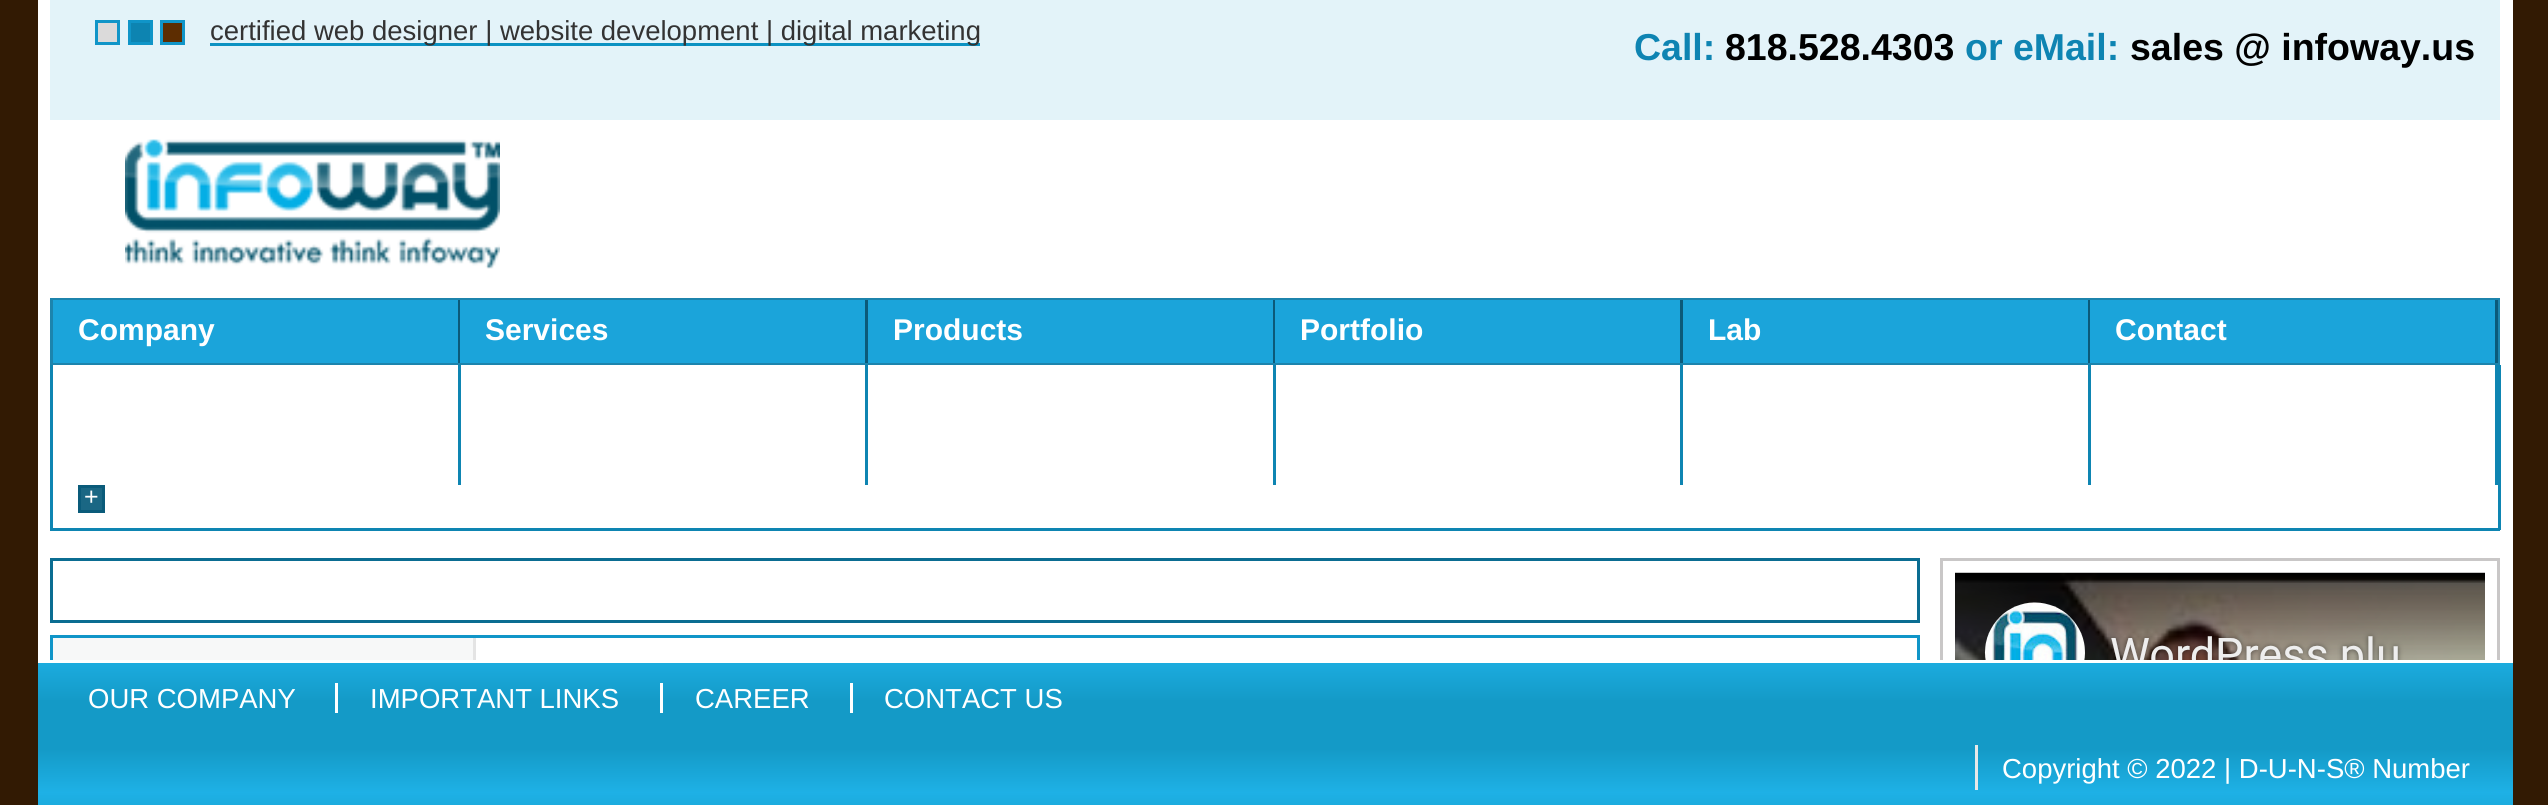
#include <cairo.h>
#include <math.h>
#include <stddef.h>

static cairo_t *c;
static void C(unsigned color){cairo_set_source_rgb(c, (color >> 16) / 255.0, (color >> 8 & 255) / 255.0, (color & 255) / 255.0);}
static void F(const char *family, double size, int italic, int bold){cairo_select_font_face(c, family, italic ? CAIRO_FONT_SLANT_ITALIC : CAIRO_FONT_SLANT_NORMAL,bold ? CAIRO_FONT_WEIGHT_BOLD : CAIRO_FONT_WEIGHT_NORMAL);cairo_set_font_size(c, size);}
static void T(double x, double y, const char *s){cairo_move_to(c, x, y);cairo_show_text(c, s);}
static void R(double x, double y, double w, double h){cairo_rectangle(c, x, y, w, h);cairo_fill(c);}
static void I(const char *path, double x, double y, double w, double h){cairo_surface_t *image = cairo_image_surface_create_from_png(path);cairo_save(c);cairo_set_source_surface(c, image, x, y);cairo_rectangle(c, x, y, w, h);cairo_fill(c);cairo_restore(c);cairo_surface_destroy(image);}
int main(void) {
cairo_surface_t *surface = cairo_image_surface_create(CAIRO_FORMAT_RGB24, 2548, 805);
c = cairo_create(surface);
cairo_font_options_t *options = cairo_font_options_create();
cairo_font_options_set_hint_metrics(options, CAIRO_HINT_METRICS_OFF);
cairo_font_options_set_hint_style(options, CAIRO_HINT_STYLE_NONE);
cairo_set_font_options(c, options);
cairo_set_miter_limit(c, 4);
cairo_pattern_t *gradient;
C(0x321a03);
cairo_paint(c);
C(0xffffff);
R(38,0,2475,660);
C(0xe3f3f9);
R(50,0,2450,120);
C(0xdbdada);
cairo_rectangle(c,96.5,21.5,22,22);
cairo_fill_preserve(c);
C(0x1095c8);
cairo_set_line_width(c,3);
cairo_stroke(c);
C(0x0d84b1);
cairo_rectangle(c,129.5,21.5,22,22);
cairo_fill_preserve(c);
C(0x1095c8);
cairo_stroke(c);
C(0x5d2d01);
cairo_rectangle(c,161.5,21.5,22,22);
cairo_fill_preserve(c);
C(0x1095c8);
cairo_stroke(c);
C(0x0c92c2);
R(210,43,770,3);
F("Liberation Sans",27.5,0,0);
C(0x333333);
T(210,40,"certified web designer | website development | digital marketing");
F("Liberation Sans",37.5,0,1);
C(0x0e84b2);
T(1634,60,"Call:");
C(0x000000);
T(1725,60,"818.528.4303");
C(0x0e84b2);
T(1965,60,"or eMail:");
C(0x000000);
T(2130,60,"sales @ infoway.us");
I("1.png",125,139,375,130);
cairo_rectangle(c,51.5,299.5,2447,64);
C(0x1c84ad);
cairo_stroke(c);
C(0x1ba4da);
R(53,300,405,63);
C(0x0b5a79);
R(458,300,2,63);
F("Liberation Sans",30,0,1);
C(0xffffff);
T(78,340,"Company");
C(0x1ba4da);
R(460,300,405,63);
C(0x0b5a79);
R(865,300,3,63);
C(0xffffff);
T(485,340,"Services");
C(0x1ba4da);
R(868,300,405,63);
C(0x0b5a79);
R(1273,300,2,63);
C(0xffffff);
T(893,340,"Products");
C(0x1ba4da);
R(1275,300,405,63);
C(0x0b5a79);
R(1680,300,3,63);
C(0xffffff);
T(1300,340,"Portfolio");
C(0x1ba4da);
R(1683,300,405,63);
C(0x0b5a79);
R(2088,300,2,63);
C(0xffffff);
T(1708,340,"Lab");
C(0x1ba4da);
R(2090,300,405,63);
C(0x0b5a79);
R(2495,300,3,63);
C(0xffffff);
T(2115,340,"Contact");
C(0x0e85b2);
R(2498,365,3,165);
R(50,528,2450,3);
R(50,365,3,165);
R(458,365,3,120);
R(865,365,3,120);
R(1273,365,3,120);
R(1680,365,3,120);
R(2088,365,3,120);
R(2495,365,3,120);
C(0x1a6784);
cairo_rectangle(c,79.5,486.5,24,25);
cairo_fill_preserve(c);
C(0x0a5b7a);
cairo_stroke(c);
F("Liberation Sans",25,0,0);
C(0xffffff);
T(84,505,"+");
cairo_rectangle(c,51.5,559.5,1867,62);
C(0x0b6d92);
cairo_stroke(c);
cairo_rectangle(c,51.5,636.5,1867,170);
C(0x1095c8);
cairo_stroke(c);
C(0xf7f8f8);
R(53,638,420,22);
C(0xe4e4e4);
R(473,638,3,22);
cairo_rectangle(c,1941.5,559.5,557,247);
C(0xc9c7c7);
cairo_stroke(c);
I("2.png",1955,572,530,88);
gradient = cairo_pattern_create_linear(1263,650,1263,793);
cairo_pattern_add_color_stop_rgba(gradient,0,0.118,0.694,0.902,1);
cairo_pattern_add_color_stop_rgba(gradient,.36,0.078,0.604,0.78,1);
cairo_pattern_add_color_stop_rgba(gradient,.69,0.078,0.604,0.78,1);
cairo_pattern_add_color_stop_rgba(gradient,1,0.118,0.694,0.902,1);
cairo_set_source(c,gradient);
cairo_pattern_destroy(gradient);
R(38,663,2475,130);
gradient = cairo_pattern_create_linear(1263,792,1263,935);
cairo_pattern_add_color_stop_rgba(gradient,0,0.118,0.694,0.902,1);
cairo_pattern_add_color_stop_rgba(gradient,.36,0.078,0.604,0.78,1);
cairo_pattern_add_color_stop_rgba(gradient,.69,0.078,0.604,0.78,1);
cairo_pattern_add_color_stop_rgba(gradient,1,0.118,0.694,0.902,1);
cairo_set_source(c,gradient);
cairo_pattern_destroy(gradient);
R(38,793,2475,12);
C(0xffffff);
R(38,660,2475,3);
F("Liberation Sans",27.5,0,0);
T(88,708,"OUR COMPANY");
R(335,683,3,30);
T(370,708,"IMPORTANT LINKS");
R(660,683,3,30);
T(695,708,"CAREER");
R(850,683,3,30);
T(884,708,"CONTACT US");
C(0xe8e8e8);
R(1975,745,3,45);
C(0xffffff);
T(2002,778,"Copyright © 2022 | D-U-N-S® Number");
cairo_surface_write_to_png(surface, "o.png");
cairo_font_options_destroy(options);
cairo_destroy(c);
cairo_surface_destroy(surface);
return 0;
}
